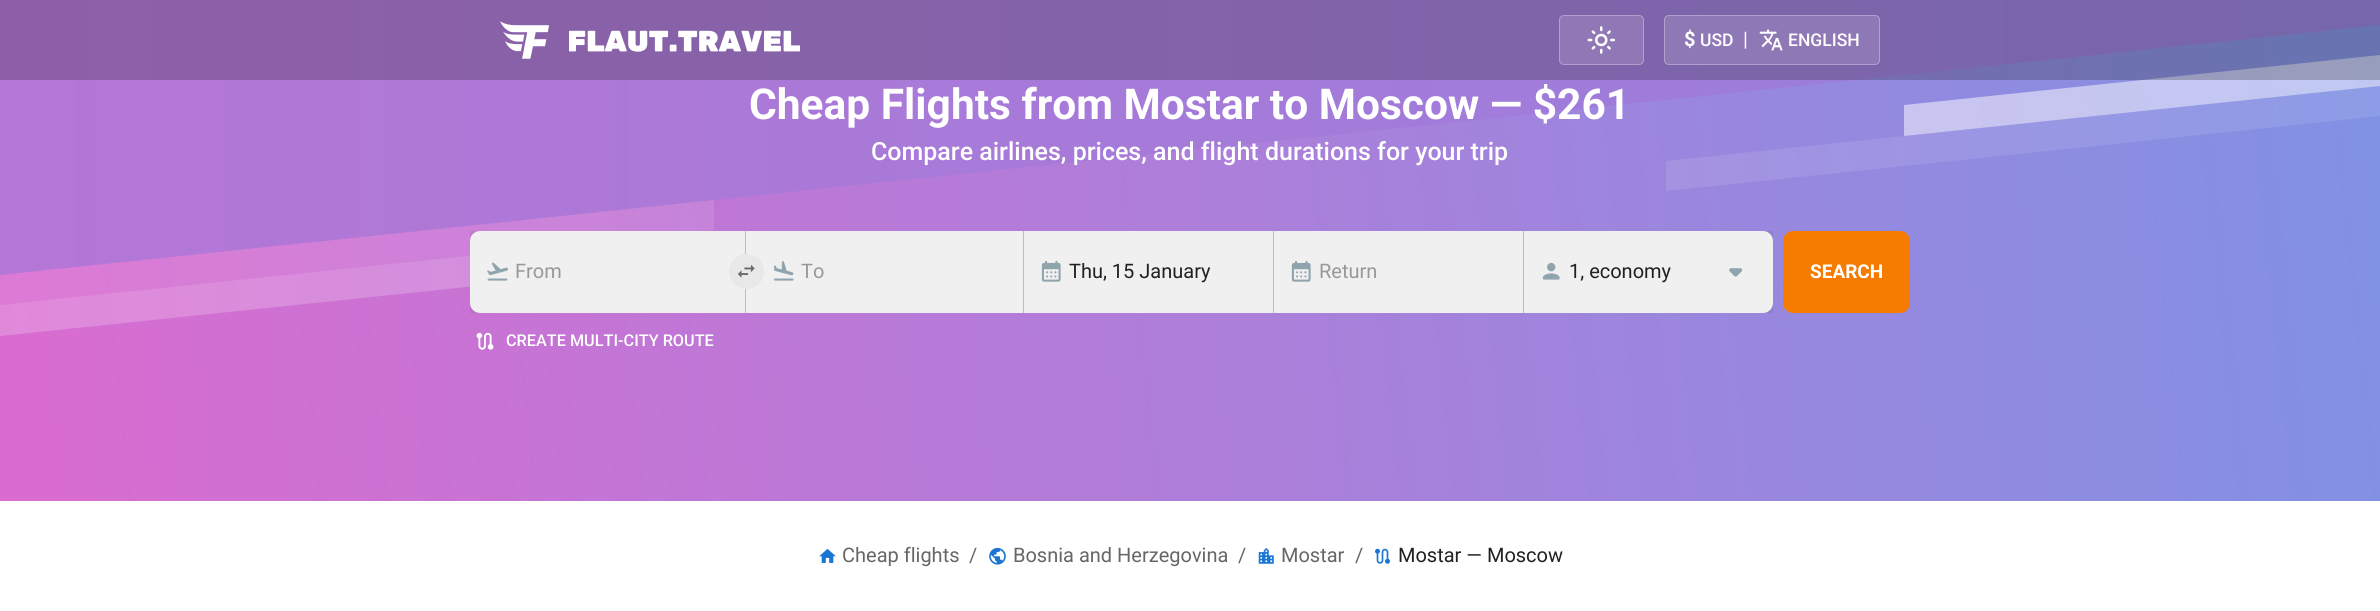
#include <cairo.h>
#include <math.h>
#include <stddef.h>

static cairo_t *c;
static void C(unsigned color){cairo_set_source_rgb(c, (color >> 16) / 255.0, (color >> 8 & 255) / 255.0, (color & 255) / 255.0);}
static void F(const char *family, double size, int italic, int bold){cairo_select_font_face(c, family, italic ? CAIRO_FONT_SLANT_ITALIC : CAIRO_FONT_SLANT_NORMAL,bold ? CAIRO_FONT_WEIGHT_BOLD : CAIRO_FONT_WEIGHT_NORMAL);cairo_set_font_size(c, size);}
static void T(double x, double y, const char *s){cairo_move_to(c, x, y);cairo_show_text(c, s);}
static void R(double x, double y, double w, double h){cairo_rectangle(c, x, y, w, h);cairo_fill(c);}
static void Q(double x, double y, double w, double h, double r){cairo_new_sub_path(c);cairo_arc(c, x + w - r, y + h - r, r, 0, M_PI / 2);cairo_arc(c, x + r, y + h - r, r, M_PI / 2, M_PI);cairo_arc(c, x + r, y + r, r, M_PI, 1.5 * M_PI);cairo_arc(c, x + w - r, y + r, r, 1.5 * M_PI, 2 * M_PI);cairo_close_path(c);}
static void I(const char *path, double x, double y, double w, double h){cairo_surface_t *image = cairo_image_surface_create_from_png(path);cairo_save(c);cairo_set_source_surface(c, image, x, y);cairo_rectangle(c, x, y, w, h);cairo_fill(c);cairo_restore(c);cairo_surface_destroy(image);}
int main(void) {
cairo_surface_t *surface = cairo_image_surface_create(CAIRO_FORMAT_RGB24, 2380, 611);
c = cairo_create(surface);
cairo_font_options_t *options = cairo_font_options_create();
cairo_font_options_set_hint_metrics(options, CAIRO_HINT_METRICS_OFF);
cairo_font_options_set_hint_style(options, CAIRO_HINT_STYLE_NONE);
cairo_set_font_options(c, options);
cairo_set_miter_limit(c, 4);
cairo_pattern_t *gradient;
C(0xffffff);
cairo_paint(c);
gradient = cairo_pattern_create_linear(-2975,150,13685,150);
cairo_pattern_add_color_stop_rgba(gradient,0,0.859,0.42,0.816,1);
cairo_pattern_add_color_stop_rgba(gradient,1,0.012,0.663,0.957,1);
cairo_set_source(c,gradient);
cairo_pattern_destroy(gradient);
R(0,0,2380,275);
cairo_save(c);
cairo_rectangle(c,0,0,2380,501);
cairo_clip(c);
gradient = cairo_pattern_create_linear(0,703,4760,202);
cairo_pattern_add_color_stop_rgba(gradient,0,0.859,0.42,0.816,1);
cairo_pattern_add_color_stop_rgba(gradient,1,0.161,0.714,0.965,1);
cairo_set_source(c,gradient);
cairo_pattern_destroy(gradient);
cairo_new_path(c);
cairo_move_to(c,0,275);
cairo_line_to(c,2380,25);
cairo_line_to(c,2380,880);
cairo_line_to(c,0,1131);
cairo_close_path(c);
cairo_fill(c);
cairo_restore(c);
cairo_set_source_rgba(c,1,1,1,0.5);
cairo_new_path(c);
cairo_move_to(c,1904,105);
cairo_line_to(c,2380,55);
cairo_line_to(c,2380,86);
cairo_line_to(c,1904,136);
cairo_close_path(c);
cairo_fill(c);
cairo_set_source_rgba(c,0.114,0.114,0.122,0.25);
R(0,0,2380,80);
I("1.png",500,21,49,38);
I("2.png",569,30,231,22);
C(0x9078b6);
Q(1559,15,85,50,5);
cairo_fill(c);
Q(1559.5,15.5,84,49,4.5);
cairo_set_source_rgba(c,1,1,1,0.3);
cairo_set_line_width(c,1);
cairo_stroke(c);
I("3.png",1587,26,28,28);
C(0x8e79b6);
Q(1664,15,216,50,5);
cairo_fill(c);
Q(1664.5,15.5,215,49,4.5);
cairo_set_source_rgba(c,1,1,1,0.3);
cairo_stroke(c);
F("Roboto",20,0,1);
C(0xffffff);
T(1684,46,"$");
F("Roboto Medium",17.5,0,0);
T(1700,46,"USD");
F("Roboto",20,0,0);
T(1743,46,"|");
I("4.png",1759,29,24,22);
F("Roboto Medium",17.5,0,0);
T(1788,46,"ENGLISH");
cairo_set_source_rgba(c,1,1,1,0.1);
cairo_new_path(c);
cairo_move_to(c,1666,161);
cairo_line_to(c,2380,86);
cairo_line_to(c,2380,116);
cairo_line_to(c,1666,191);
cairo_close_path(c);
cairo_fill(c);
cairo_new_path(c);
cairo_move_to(c,0,275);
cairo_line_to(c,714,200);
cairo_line_to(c,714,230);
cairo_line_to(c,0,305);
cairo_close_path(c);
cairo_fill(c);
cairo_set_source_rgba(c,1,1,1,0.2);
cairo_new_path(c);
cairo_move_to(c,0,305);
cairo_line_to(c,476,255);
cairo_line_to(c,476,286);
cairo_line_to(c,0,336);
cairo_close_path(c);
cairo_fill(c);
F("Roboto",42.5,0,1);
C(0xffffff);
T(749,119,"Cheap Flights from Mostar to Moscow — $261");
F("Roboto Medium",25,0,0);
T(871,160,"Compare airlines, prices, and flight durations for your trip");
cairo_new_path(c);
cairo_move_to(c,480,231);
cairo_line_to(c,746,231);
cairo_line_to(c,746,313);
cairo_line_to(c,480,313);
cairo_curve_to(c,474.5,313,470,308.5,470,303);
cairo_line_to(c,470,241);
cairo_curve_to(c,470,235.5,474.5,231,480,231);
cairo_close_path(c);
cairo_fill(c);
C(0xbdbdbd);
R(745,231,1,82);
cairo_set_source_rgba(c,0,0,0,0.06);
R(470,231,275,82);
I("5.png",487,262,21,19);
F("Roboto",20,0,0);
C(0x989898);
T(515,278,"From");
C(0xf0f0f0);
R(746,231,277,82);
C(0xffffff);
cairo_new_path(c);
cairo_arc(c,746.5,271.5,17.5,0,2 * M_PI);
cairo_fill(c);
cairo_set_source_rgba(c,0,0,0,0.09);
cairo_arc(c,746.5,271.5,17.5,0,2 * M_PI);
cairo_fill(c);
I("6.png",738,265,17,13);
I("7.png",773,261,21,20);
C(0x989898);
T(801,278,"To");
C(0xbdbdbd);
R(1023,231,1,82);
C(0xf0f0f0);
R(1024,231,249,82);
I("8.png",1041,260,20,22);
C(0x212121);
T(1069,278,"Thu, 15 January");
C(0xbdbdbd);
R(1273,231,1,82);
C(0xf0f0f0);
R(1274,231,249,82);
I("8.png",1291,260,20,22);
C(0x989898);
T(1319,278,"Return");
C(0xffffff);
cairo_new_path(c);
cairo_move_to(c,1523,231);
cairo_line_to(c,1763,231);
cairo_curve_to(c,1768.5,231,1773,235.5,1773,241);
cairo_line_to(c,1773,303);
cairo_curve_to(c,1773,308.5,1768.5,313,1763,313);
cairo_line_to(c,1523,313);
cairo_close_path(c);
cairo_fill(c);
C(0xbdbdbd);
R(1523,231,1,82);
cairo_set_source_rgba(c,0,0,0,0.06);
R(1524,231,249,82);
I("9.png",1542,262,18,18);
C(0x212121);
T(1569,278,"1, economy");
I("10.png",1729,268,14,9);
C(0xf57c00);
Q(1783,231,127,82,10);
cairo_fill(c);
F("Roboto",19,0,1);
C(0xffffff);
T(1810,278,"SEARCH");
I("11.png",476,332,18,18);
F("Roboto Medium",16.25,0,0);
T(506,346,"CREATE MULTI-CITY ROUTE");
I("12.png",819,548,17,15);
F("Roboto",20,0,0);
C(0x666666);
T(842,562,"Cheap flights");
T(969,562,"/");
I("13.png",989,547,17,18);
T(1013,562,"Bosnia and Herzegovina");
T(1238,562,"/");
I("14.png",1258,548,16,16);
T(1281,562,"Mostar");
T(1355,562,"/");
I("15.png",1375,548,15,16);
C(0x212121);
T(1398,562,"Mostar — Moscow");
cairo_surface_write_to_png(surface, "o.png");
cairo_font_options_destroy(options);
cairo_destroy(c);
cairo_surface_destroy(surface);
return 0;
}
